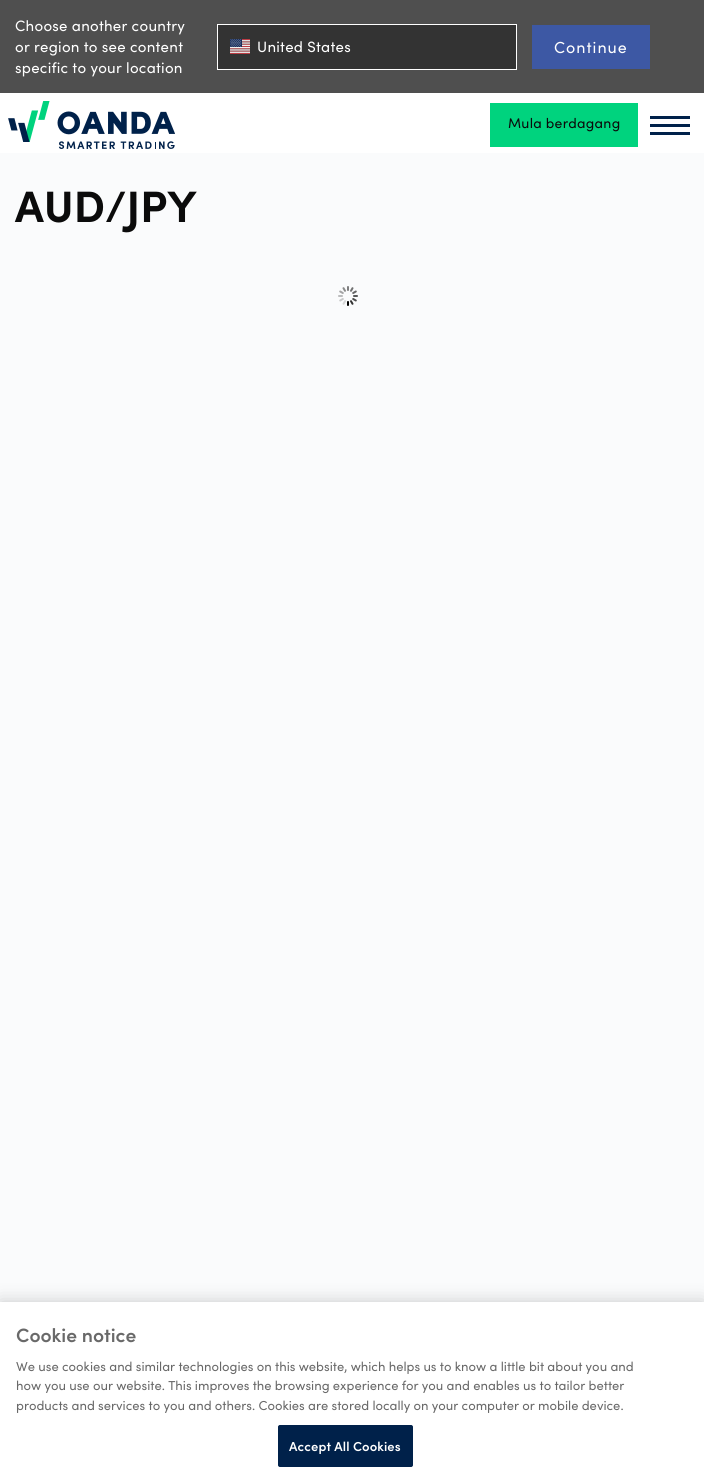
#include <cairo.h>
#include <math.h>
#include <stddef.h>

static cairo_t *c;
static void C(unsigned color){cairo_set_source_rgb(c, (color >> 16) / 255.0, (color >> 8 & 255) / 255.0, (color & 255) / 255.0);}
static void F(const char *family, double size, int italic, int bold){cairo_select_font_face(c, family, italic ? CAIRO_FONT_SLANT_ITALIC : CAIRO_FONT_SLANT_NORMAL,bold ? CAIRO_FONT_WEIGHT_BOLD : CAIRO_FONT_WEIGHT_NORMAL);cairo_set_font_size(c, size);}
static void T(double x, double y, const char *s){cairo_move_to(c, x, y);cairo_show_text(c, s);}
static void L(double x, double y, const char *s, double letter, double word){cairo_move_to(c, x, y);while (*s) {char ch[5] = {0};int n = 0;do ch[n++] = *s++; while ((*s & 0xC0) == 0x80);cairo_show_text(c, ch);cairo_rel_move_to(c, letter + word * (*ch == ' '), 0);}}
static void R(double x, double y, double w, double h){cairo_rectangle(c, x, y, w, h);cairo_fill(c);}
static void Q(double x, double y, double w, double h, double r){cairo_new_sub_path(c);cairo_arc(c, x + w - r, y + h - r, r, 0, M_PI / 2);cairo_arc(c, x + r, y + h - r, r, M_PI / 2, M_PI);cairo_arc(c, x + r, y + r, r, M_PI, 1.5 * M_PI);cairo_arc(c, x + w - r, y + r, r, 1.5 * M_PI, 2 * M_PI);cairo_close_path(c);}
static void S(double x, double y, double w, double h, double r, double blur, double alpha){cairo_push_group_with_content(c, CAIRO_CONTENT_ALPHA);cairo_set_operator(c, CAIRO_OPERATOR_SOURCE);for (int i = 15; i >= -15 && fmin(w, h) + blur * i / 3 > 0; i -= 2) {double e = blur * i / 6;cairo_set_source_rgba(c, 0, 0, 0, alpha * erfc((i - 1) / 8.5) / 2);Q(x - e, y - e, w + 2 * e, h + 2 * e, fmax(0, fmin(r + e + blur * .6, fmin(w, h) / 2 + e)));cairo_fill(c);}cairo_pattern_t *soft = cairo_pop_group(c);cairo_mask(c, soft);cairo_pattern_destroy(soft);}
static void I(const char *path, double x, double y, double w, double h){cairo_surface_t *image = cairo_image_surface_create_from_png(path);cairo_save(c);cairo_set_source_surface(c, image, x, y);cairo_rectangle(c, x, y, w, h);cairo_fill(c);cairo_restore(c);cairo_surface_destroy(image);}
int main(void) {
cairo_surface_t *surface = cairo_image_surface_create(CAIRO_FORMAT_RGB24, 704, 1483);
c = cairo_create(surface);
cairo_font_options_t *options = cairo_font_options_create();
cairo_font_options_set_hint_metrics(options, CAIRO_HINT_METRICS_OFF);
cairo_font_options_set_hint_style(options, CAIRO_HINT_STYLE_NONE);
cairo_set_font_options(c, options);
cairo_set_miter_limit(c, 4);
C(0xfafbfc);
cairo_paint(c);
C(0x4f4f4f);
R(0,0,704,93);
F("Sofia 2",15,0,0);
C(0xffffff);
L(15,31,"Choose another country",.25,0);
L(15,52,"or region to see content",.25,0);
L(15,73,"specific to your location",.25,0);
C(0x333333);
cairo_rectangle(c,217.5,24.5,299,45);
cairo_fill_preserve(c);
C(0xffffff);
cairo_set_line_width(c,1);
cairo_stroke(c);
I("1.png",230,39,20,15);
L(257,52,"United States",.25,0);
C(0x3d58a4);
R(532,25,118,44);
F("Sofia 2",16,0,0);
C(0xffffff);
L(554,53,"Continue",1,0);
R(0,93,704,60);
I("2.png",8,101,167,48);
C(0x00d37e);
R(492,105,144,40);
cairo_rectangle(c,491,104,146,42);
cairo_set_line_width(c,2);
cairo_stroke(c);
F("Sofia",14,0,0);
C(0x0b0b0b);
L(508,128,"Mula berdagang",.25,0);
C(0x00214a);
R(650,116,40,3);
R(650,124,40,3);
R(650,132,40,3);
F("Sofia",44,0,1);
C(0x0b0b0b);
T(15,222,"AUD/JPY");
I("3.png",338,286,20,20);
C(0x000000);
S(0,1302,704,181,0,9,.2);
C(0xffffff);
R(0,1302,704,181);
F("Sofia SemiBold",19.25,0,0);
C(0x696969);
T(16,1342,"Cookie notice");
F("Sofia 2",13,0,0);
T(16,1371,"We use cookies and similar technologies on this website, which helps us to know a little bit about you and");
T(16,1390,"how you use our website. This improves the browsing experience for you and enables us to tailor better");
T(16,1410,"products and services to you and others. Cookies are stored locally on your computer or mobile device.");
C(0x00214a);
Q(278.5,1425.5,134,41,1.5);
cairo_fill_preserve(c);
cairo_set_line_width(c,1);
cairo_stroke(c);
F("Sofia SemiBold",13,0,0);
C(0xffffff);
L(289,1451,"Accept All Cookies",.1,0);
cairo_surface_write_to_png(surface, "o.png");
cairo_font_options_destroy(options);
cairo_destroy(c);
cairo_surface_destroy(surface);
return 0;
}
